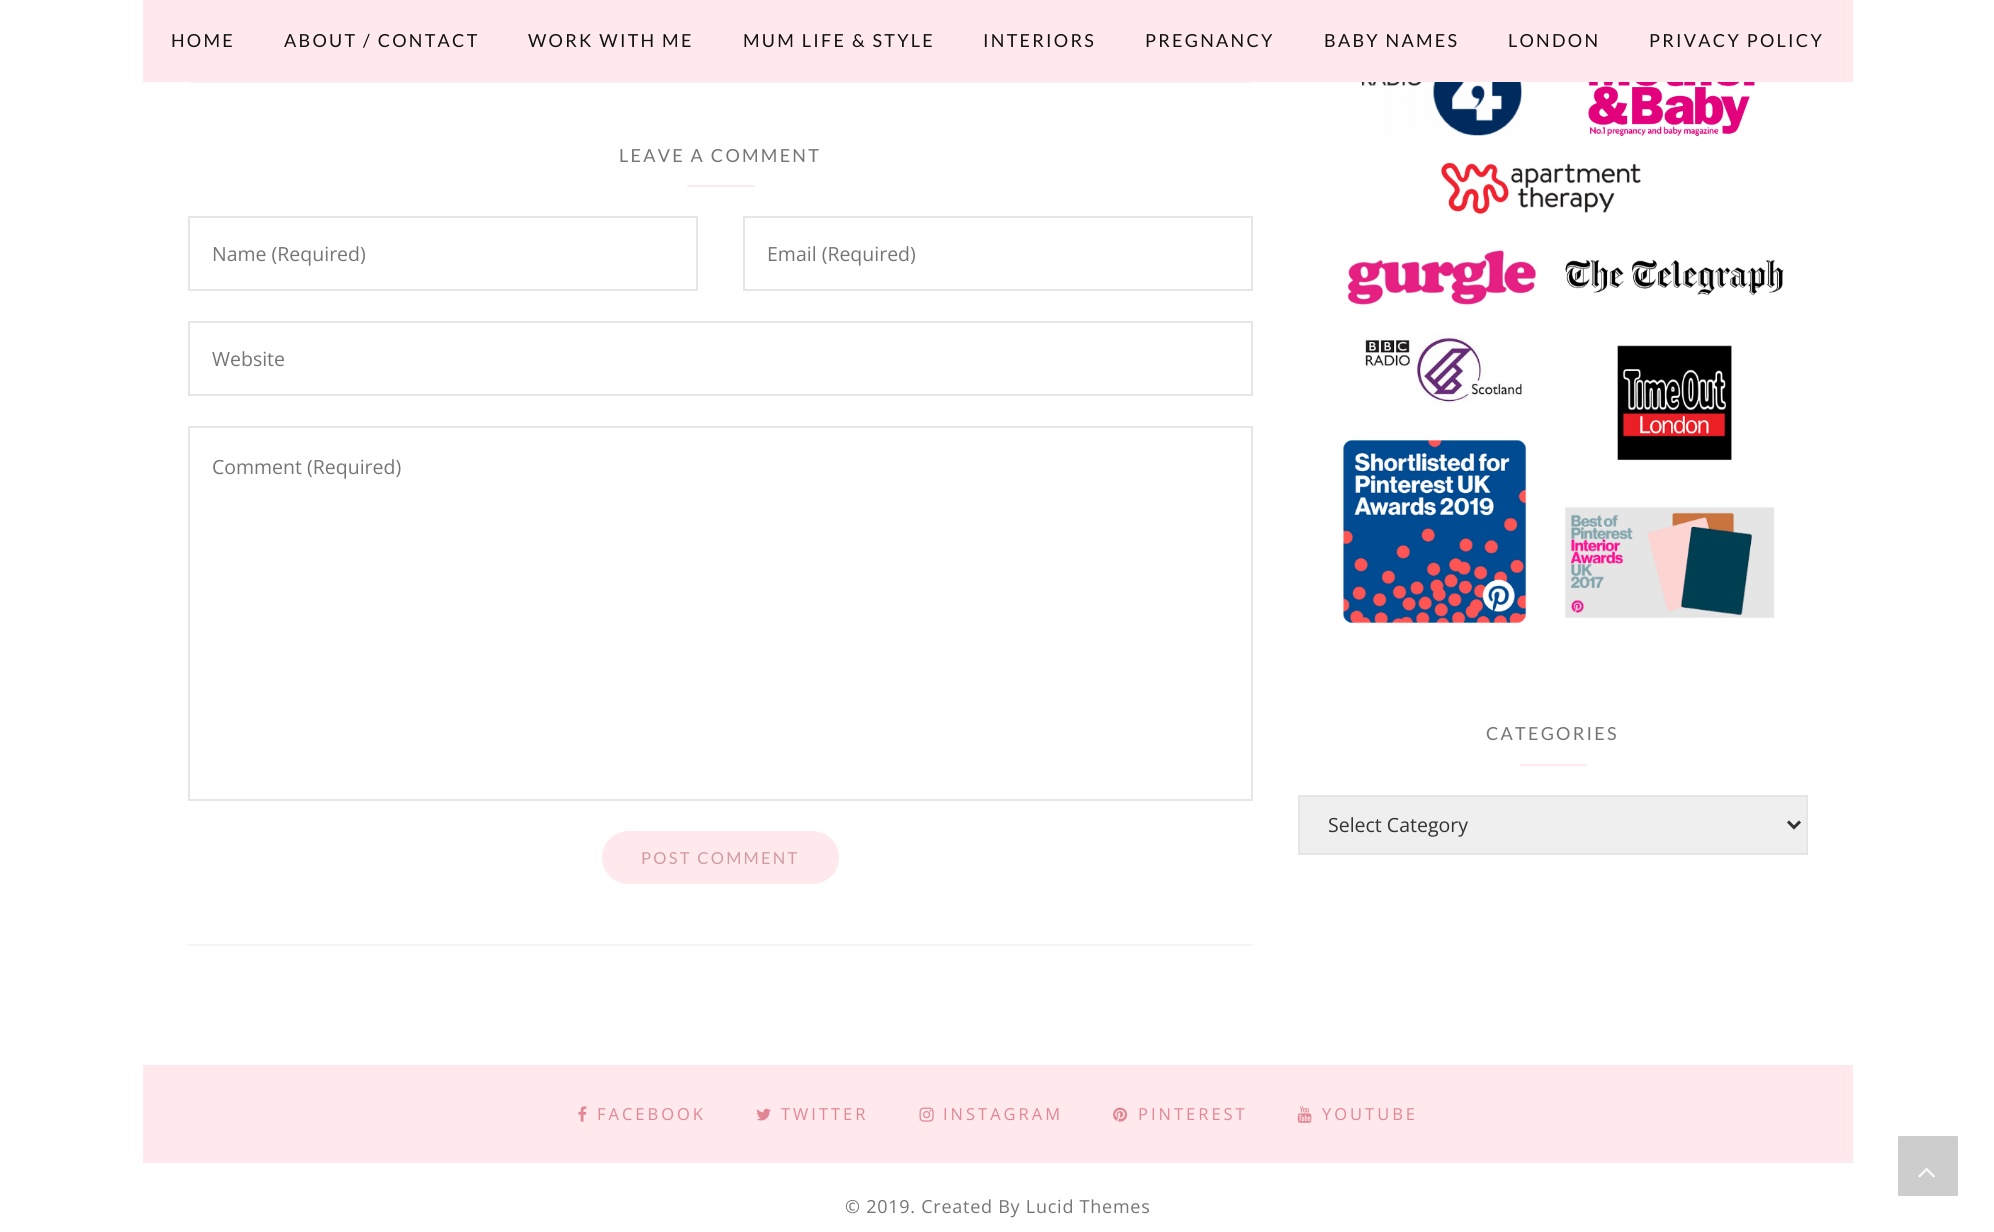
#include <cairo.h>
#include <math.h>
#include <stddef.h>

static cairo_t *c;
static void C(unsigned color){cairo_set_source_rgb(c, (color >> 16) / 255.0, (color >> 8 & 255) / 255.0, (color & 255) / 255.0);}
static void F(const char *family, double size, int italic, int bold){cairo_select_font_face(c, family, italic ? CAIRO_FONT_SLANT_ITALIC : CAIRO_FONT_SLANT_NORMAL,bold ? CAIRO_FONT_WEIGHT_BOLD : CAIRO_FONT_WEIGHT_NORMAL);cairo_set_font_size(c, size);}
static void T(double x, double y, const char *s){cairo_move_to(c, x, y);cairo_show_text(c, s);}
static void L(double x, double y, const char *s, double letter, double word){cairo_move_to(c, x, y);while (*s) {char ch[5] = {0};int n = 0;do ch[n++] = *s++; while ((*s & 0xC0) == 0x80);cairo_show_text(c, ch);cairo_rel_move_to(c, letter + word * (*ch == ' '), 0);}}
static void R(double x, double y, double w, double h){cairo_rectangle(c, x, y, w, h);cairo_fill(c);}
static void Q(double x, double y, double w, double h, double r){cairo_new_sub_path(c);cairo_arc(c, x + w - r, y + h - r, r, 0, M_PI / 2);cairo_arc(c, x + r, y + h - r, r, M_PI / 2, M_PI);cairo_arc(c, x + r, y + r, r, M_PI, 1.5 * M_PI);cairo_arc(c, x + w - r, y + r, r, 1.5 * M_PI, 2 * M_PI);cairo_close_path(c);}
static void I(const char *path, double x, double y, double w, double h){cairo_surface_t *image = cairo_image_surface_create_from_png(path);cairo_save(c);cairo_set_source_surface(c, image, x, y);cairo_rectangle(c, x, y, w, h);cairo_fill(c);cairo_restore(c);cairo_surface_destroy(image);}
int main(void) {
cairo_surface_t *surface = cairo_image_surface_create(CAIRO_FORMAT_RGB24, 1994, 1232);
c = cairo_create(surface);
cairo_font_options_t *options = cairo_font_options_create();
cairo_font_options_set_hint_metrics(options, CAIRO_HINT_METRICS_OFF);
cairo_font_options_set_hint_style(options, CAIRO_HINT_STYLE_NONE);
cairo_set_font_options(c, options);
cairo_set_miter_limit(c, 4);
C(0xffffff);
cairo_paint(c);
C(0xffe9ec);
R(143,0,1710,82);
F("Lato",18,0,0);
C(0x111111);
L(171,47,"HOME",2.25,0);
L(284,47,"ABOUT / CONTACT",2.25,0);
L(528,47,"WORK WITH ME",2.25,0);
L(743,47,"MUM LIFE & STYLE",2.25,0);
L(983,47,"INTERIORS",2.25,0);
L(1145,47,"PREGNANCY",2.25,0);
L(1324,47,"BABY NAMES",2.25,0);
L(1508,47,"LONDON",2.25,0);
L(1649,47,"PRIVACY POLICY",2.25,0);
C(0xf5f5f5);
R(188,82,1065,1);
R(188,944,1065,2);
C(0x757575);
L(619,162,"LEAVE A COMMENT",2.25,0);
C(0xffe9ec);
R(687,185,68,2);
cairo_rectangle(c,189,217,508,73);
C(0xe6e6e6);
cairo_stroke(c);
F("Open Sans",19.5,0,0);
C(0x757575);
T(212,261,"Name (Required)");
cairo_rectangle(c,744,217,508,73);
C(0xe6e6e6);
cairo_stroke(c);
C(0x757575);
T(767,261,"Email (Required)");
cairo_rectangle(c,189,322,1063,73);
C(0xe6e6e6);
cairo_stroke(c);
C(0x757575);
T(212,366,"Website");
cairo_rectangle(c,189,427,1063,373);
C(0xe6e6e6);
cairo_stroke(c);
C(0x757575);
T(212,474,"Comment (Required)");
C(0xffe9ec);
Q(603,832,235,51,25.5);
cairo_fill_preserve(c);
cairo_stroke(c);
F("Lato",16.5,0,0);
C(0xd29aa1);
L(641,864,"POST COMMENT",2.25,0);
I("1.png",1343,82,441,542);
F("Lato",18,0,0);
C(0x757575);
L(1486,740,"CATEGORIES",2.25,0);
C(0xffe9ec);
R(1520,764,67,2);
C(0xefefef);
cairo_rectangle(c,1299,796,508,58);
cairo_fill_preserve(c);
C(0xe6e6e6);
cairo_stroke(c);
cairo_new_path(c);
cairo_move_to(c,1788,821.5);
cairo_line_to(c,1794,827.5);
cairo_line_to(c,1800,821.5);
C(0x333333);
cairo_set_line_width(c,3);
cairo_stroke(c);
F("Open Sans",19.5,0,0);
T(1328,832,"Select Category");
C(0xffe9ec);
R(143,1065,1710,98);
I("2.png",578,1106,9,16);
F("Open Sans",16.5,0,0);
C(0xe28694);
L(597,1120,"FACEBOOK",3,0);
I("3.png",756,1108,15,13);
L(781,1120,"TWITTER",3,0);
I("4.png",919,1107,15,15);
L(943,1120,"INSTAGRAM",3,0);
I("5.png",1113,1107,15,15);
L(1138,1120,"PINTEREST",3,0);
I("6.png",1297,1106,15,17);
L(1322,1120,"YOUTUBE",3,0);
C(0xcdcdcd);
Q(1898,1136,60,60,1.5);
cairo_fill(c);
I("7.png",1918,1167,17,11);
F("Open Sans",18,0,0);
C(0x757575);
L(845,1213,"© 2019. Created By Lucid Themes",.75,0);
cairo_surface_write_to_png(surface, "o.png");
cairo_font_options_destroy(options);
cairo_destroy(c);
cairo_surface_destroy(surface);
return 0;
}
